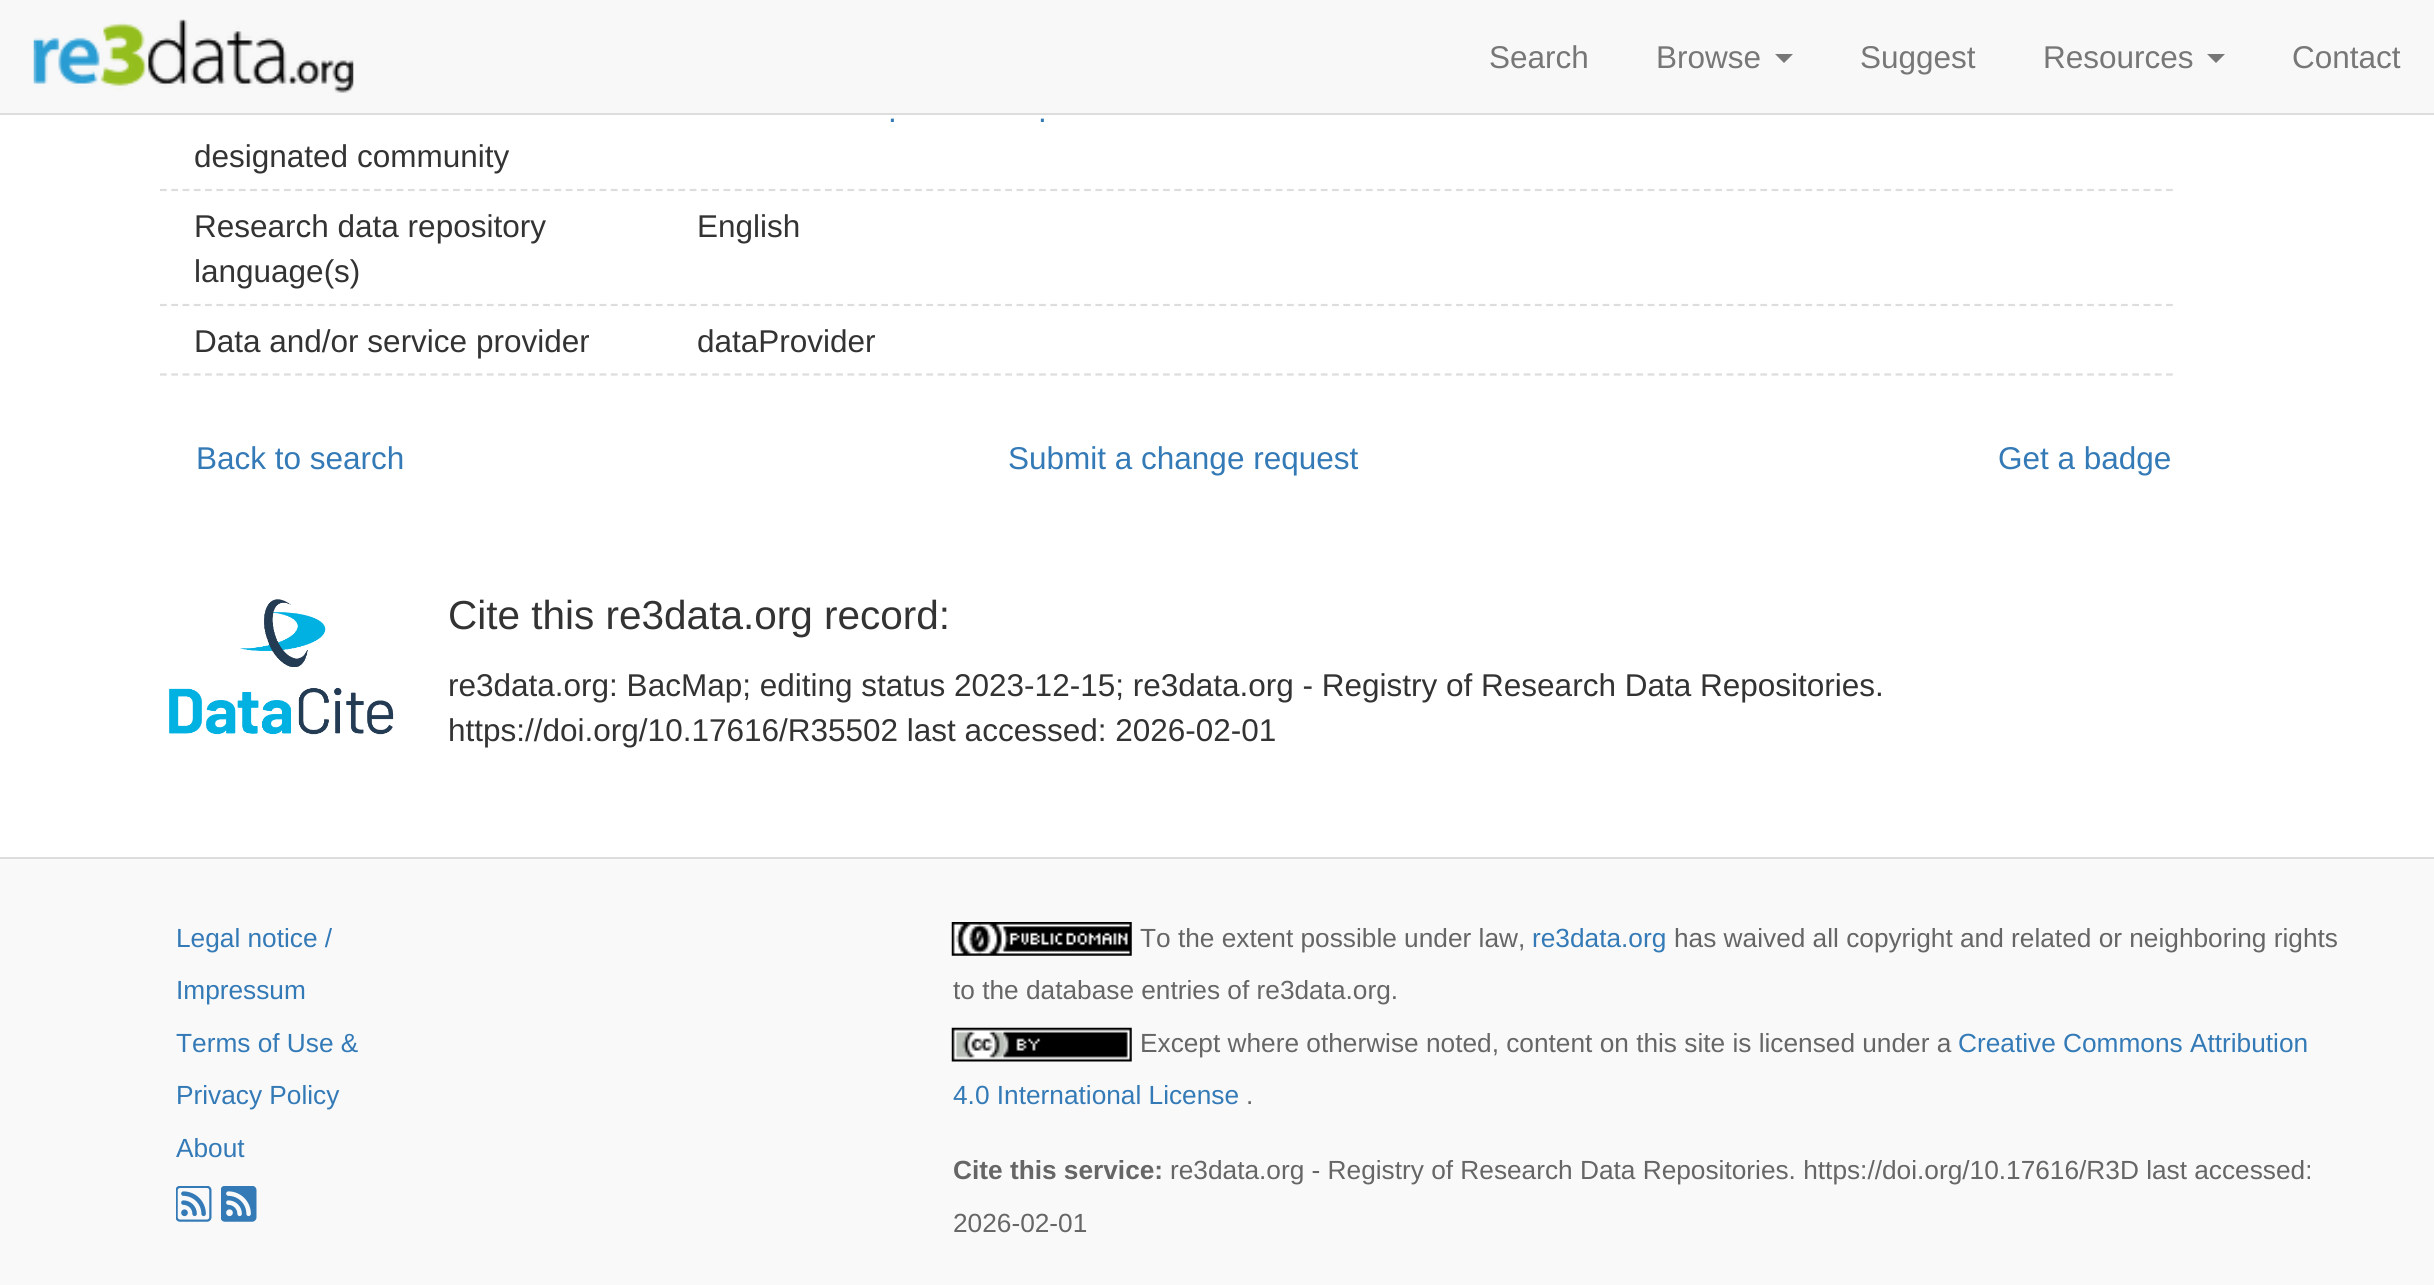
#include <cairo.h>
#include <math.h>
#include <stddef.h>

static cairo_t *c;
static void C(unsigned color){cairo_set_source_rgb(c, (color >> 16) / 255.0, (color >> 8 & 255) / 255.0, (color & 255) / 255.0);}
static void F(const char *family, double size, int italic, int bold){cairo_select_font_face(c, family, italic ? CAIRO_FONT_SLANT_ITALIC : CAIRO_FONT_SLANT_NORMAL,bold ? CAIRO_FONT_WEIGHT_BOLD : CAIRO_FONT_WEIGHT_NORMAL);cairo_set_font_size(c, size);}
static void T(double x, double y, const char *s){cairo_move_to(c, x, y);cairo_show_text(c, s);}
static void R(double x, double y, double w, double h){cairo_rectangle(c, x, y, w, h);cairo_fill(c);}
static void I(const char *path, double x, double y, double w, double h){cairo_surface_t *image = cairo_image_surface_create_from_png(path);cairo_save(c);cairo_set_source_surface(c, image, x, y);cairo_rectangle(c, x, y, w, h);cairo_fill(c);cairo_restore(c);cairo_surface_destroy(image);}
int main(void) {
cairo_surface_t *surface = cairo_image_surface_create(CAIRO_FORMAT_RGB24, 2434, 1285);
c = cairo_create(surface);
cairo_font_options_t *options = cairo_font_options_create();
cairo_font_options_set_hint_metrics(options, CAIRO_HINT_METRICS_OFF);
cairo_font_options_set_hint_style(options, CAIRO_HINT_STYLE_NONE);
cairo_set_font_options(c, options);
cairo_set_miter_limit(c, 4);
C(0xffffff);
cairo_paint(c);
C(0xf8f8f8);
R(0,0,2434,113);
C(0xdddddd);
R(0,113,2434,2);
I("1.png",33,19,321,74);
F("Liberation Sans",31.5,0,0);
C(0x777777);
T(1489,68,"Search");
T(1656,68,"Browse");
cairo_new_path(c);
cairo_move_to(c,1775,54);
cairo_line_to(c,1793,54);
cairo_line_to(c,1784,63);
cairo_close_path(c);
cairo_fill(c);
T(1860,68,"Suggest");
T(2043,68,"Resources");
cairo_new_path(c);
cairo_move_to(c,2207,54);
cairo_line_to(c,2225,54);
cairo_line_to(c,2216,63);
cairo_close_path(c);
cairo_fill(c);
T(2292,68,"Contact");
C(0x337ab7);
T(888,122,".");
T(1038,122,".");
C(0x333333);
T(194,167,"designated community");
cairo_new_path(c);
cairo_move_to(c,160,190);
cairo_line_to(c,2173.5,190);
C(0xdddddd);
cairo_set_line_width(c,2.2);
cairo_set_dash(c,(double[]){6.75,4.52},2,0);
cairo_stroke(c);
C(0x333333);
T(194,237,"Research data repository");
T(194,282,"language(s)");
T(697,237,"English");
cairo_new_path(c);
cairo_move_to(c,160,305);
cairo_line_to(c,2173.5,305);
C(0xdddddd);
cairo_stroke(c);
C(0x333333);
T(194,352,"Data and/or service provider");
T(697,352,"dataProvider");
cairo_new_path(c);
cairo_move_to(c,160,374.5);
cairo_line_to(c,2173.5,374.5);
C(0xdddddd);
cairo_stroke(c);
C(0x337ab7);
T(196,469,"Back to search");
T(1008,469,"Submit a change request");
T(1998,469,"Get a badge");
I("2.png",169,599,225,136);
F("Liberation Sans",40.5,0,0);
C(0x333333);
T(448,629,"Cite this re3data.org record:");
F("Liberation Sans",31.5,0,0);
T(448,696,"re3data.org: BacMap; editing status 2023-12-15; re3data.org - Registry of Research Data Repositories.");
T(448,741,"https://doi.org/10.17616/R35502 last accessed: 2026-02-01");
C(0xf9f9f9);
R(0,859,2434,426);
C(0xdddddd);
R(0,857,2434,2);
F("Liberation Sans",26.25,0,0);
C(0x337ab7);
T(176,947,"Legal notice /");
T(176,999,"Impressum");
T(176,1052,"Terms of Use &");
T(176,1104,"Privacy Policy");
T(176,1157,"About");
I("3.png",176,1186,36,36);
I("4.png",221,1186,36,36);
I("5.png",951,922,181,34);
C(0x666666);
T(1140,947,"To the extent possible under law,");
C(0x337ab7);
T(1532,947,"re3data.org");
C(0x666666);
T(1674,947,"has waived all copyright and related or neighboring rights");
T(953,999,"to the database entries of re3data.org.");
I("6.png",951,1027,181,35);
T(1140,1052,"Except where otherwise noted, content on this site is licensed under a");
C(0x337ab7);
T(1958,1052,"Creative Commons Attribution");
T(953,1104,"4.0 International License");
C(0x666666);
T(1246,1104,".");
F("Liberation Sans",26.25,0,1);
T(953,1179,"Cite this service:");
F("Liberation Sans",26.25,0,0);
T(1170,1179,"re3data.org - Registry of Research Data Repositories. https://doi.org/10.17616/R3D last accessed:");
T(953,1232,"2026-02-01");
cairo_surface_write_to_png(surface, "o.png");
cairo_font_options_destroy(options);
cairo_destroy(c);
cairo_surface_destroy(surface);
return 0;
}
